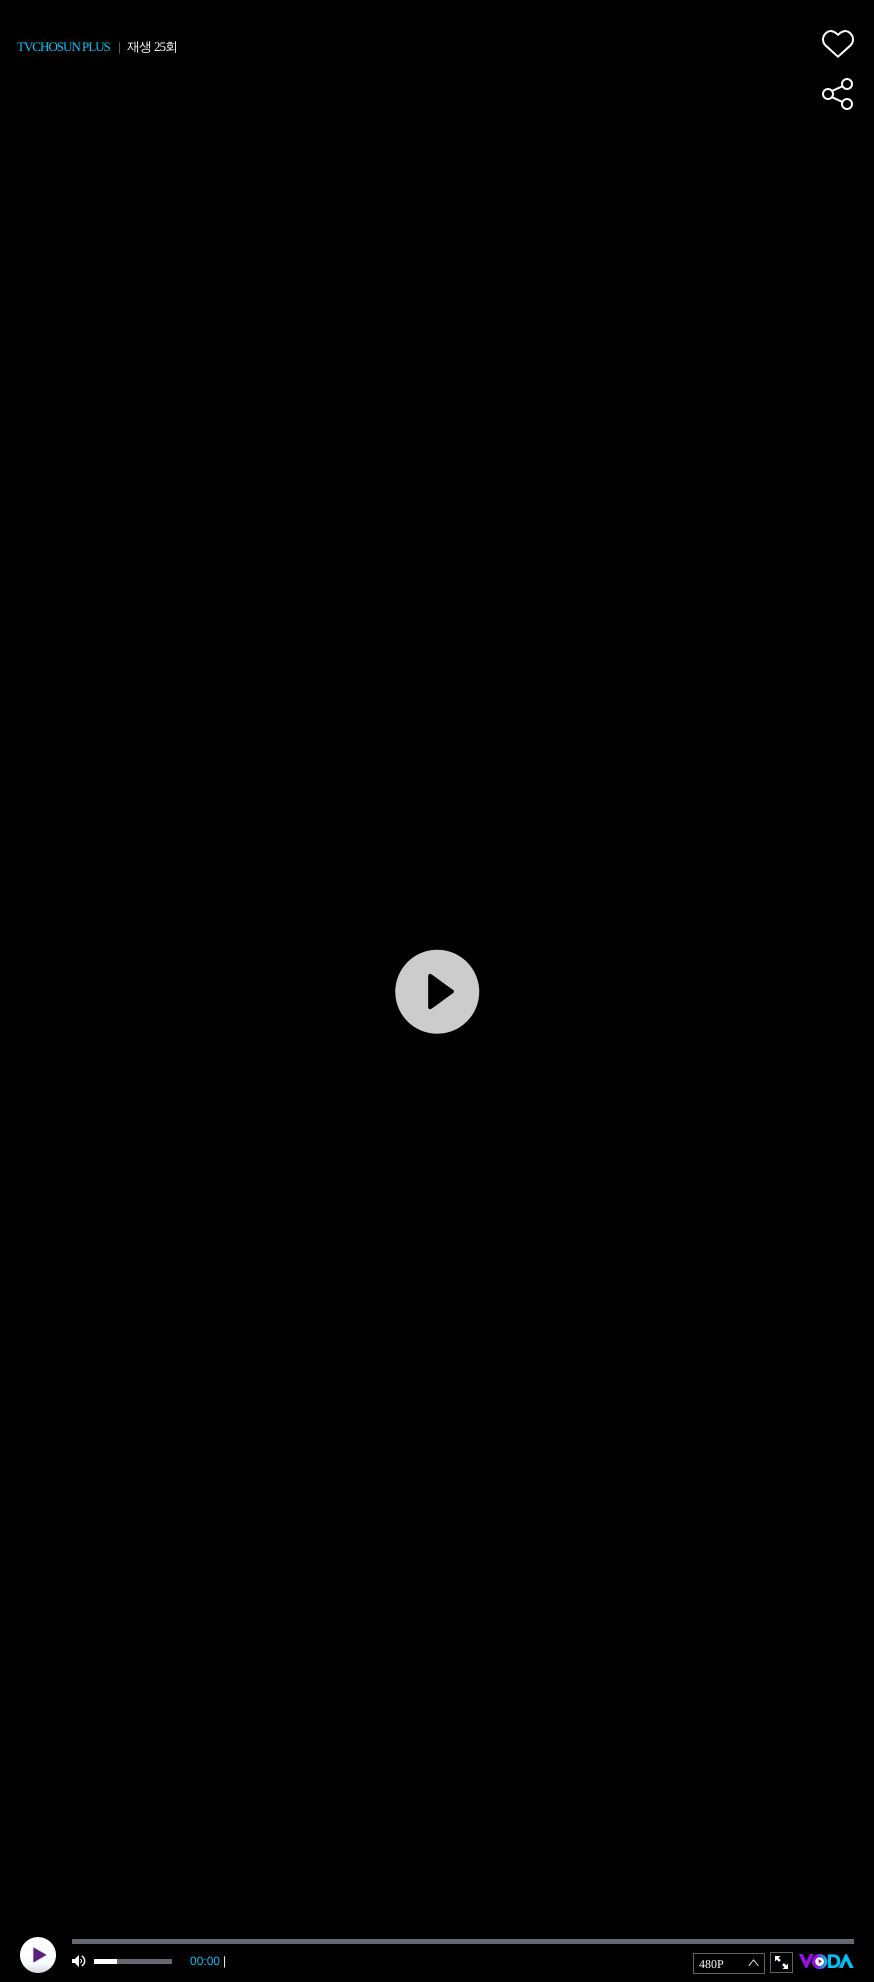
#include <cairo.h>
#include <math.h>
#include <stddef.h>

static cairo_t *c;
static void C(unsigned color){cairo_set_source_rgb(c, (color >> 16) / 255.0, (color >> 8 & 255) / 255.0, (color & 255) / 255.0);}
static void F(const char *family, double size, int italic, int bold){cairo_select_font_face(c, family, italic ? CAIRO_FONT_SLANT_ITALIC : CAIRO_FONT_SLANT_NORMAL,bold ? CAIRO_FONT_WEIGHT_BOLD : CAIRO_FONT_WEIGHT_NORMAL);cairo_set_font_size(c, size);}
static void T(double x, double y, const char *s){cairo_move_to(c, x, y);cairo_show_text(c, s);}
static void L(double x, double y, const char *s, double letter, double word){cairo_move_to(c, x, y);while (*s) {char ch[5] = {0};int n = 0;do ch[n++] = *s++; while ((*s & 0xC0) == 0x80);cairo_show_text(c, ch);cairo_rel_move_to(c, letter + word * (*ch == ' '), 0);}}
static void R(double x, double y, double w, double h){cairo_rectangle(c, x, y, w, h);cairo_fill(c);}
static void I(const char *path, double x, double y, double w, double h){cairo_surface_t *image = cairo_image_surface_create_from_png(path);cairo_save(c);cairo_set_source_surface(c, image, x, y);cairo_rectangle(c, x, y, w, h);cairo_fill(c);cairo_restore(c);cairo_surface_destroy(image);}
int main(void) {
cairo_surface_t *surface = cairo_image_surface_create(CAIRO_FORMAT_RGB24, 874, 1982);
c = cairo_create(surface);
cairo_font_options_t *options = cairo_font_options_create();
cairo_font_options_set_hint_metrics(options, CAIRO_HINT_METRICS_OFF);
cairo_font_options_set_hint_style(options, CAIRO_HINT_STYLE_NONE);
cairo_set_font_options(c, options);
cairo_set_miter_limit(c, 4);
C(0x000000);
cairo_paint(c);
I("1.png",822,30,32,28);
I("2.png",822,78,31,32);
I("3.png",395,949,85,85);
F("Liberation Serif",13,0,0);
C(0x00c8ff);
L(17,51,"TVCHOSUN PLUS",-1,0);
C(0x888888);
L(118,51,"|",-1,0);
F("WenQuanYi Zen Hei Medium",13,0,0);
C(0xffffff);
L(127,51,"재생",-1,0);
F("Liberation Serif",13,0,0);
L(154,51,"25",-1,0);
F("WenQuanYi Zen Hei Medium",13,0,0);
L(165,51,"회",-1,0);
C(0x636971);
R(72,1939,782,5);
F("Liberation Sans",12,0,0);
C(0x02c1f5);
T(190,1965,"00:00");
C(0xffffff);
T(223,1965,"|");
I("4.png",20,1937,36,36);
I("5.png",72,1955,14,13);
C(0x636972);
R(117,1959,55,5);
C(0xffffff);
R(94,1959,23,5);
cairo_rectangle(c,693.5,1953.5,71,20);
C(0x5d6168);
cairo_set_line_width(c,1);
cairo_stroke(c);
F("Liberation Serif",12,0,0);
C(0xffffff);
T(699,1968,"480P");
I("6.png",748,1959,11,8);
I("7.png",775,1956,13,13);
cairo_rectangle(c,770.5,1952.5,22,20);
C(0x5d6168);
cairo_stroke(c);
I("8.png",798,1954,56,16);
cairo_surface_write_to_png(surface, "o.png");
cairo_font_options_destroy(options);
cairo_destroy(c);
cairo_surface_destroy(surface);
return 0;
}
